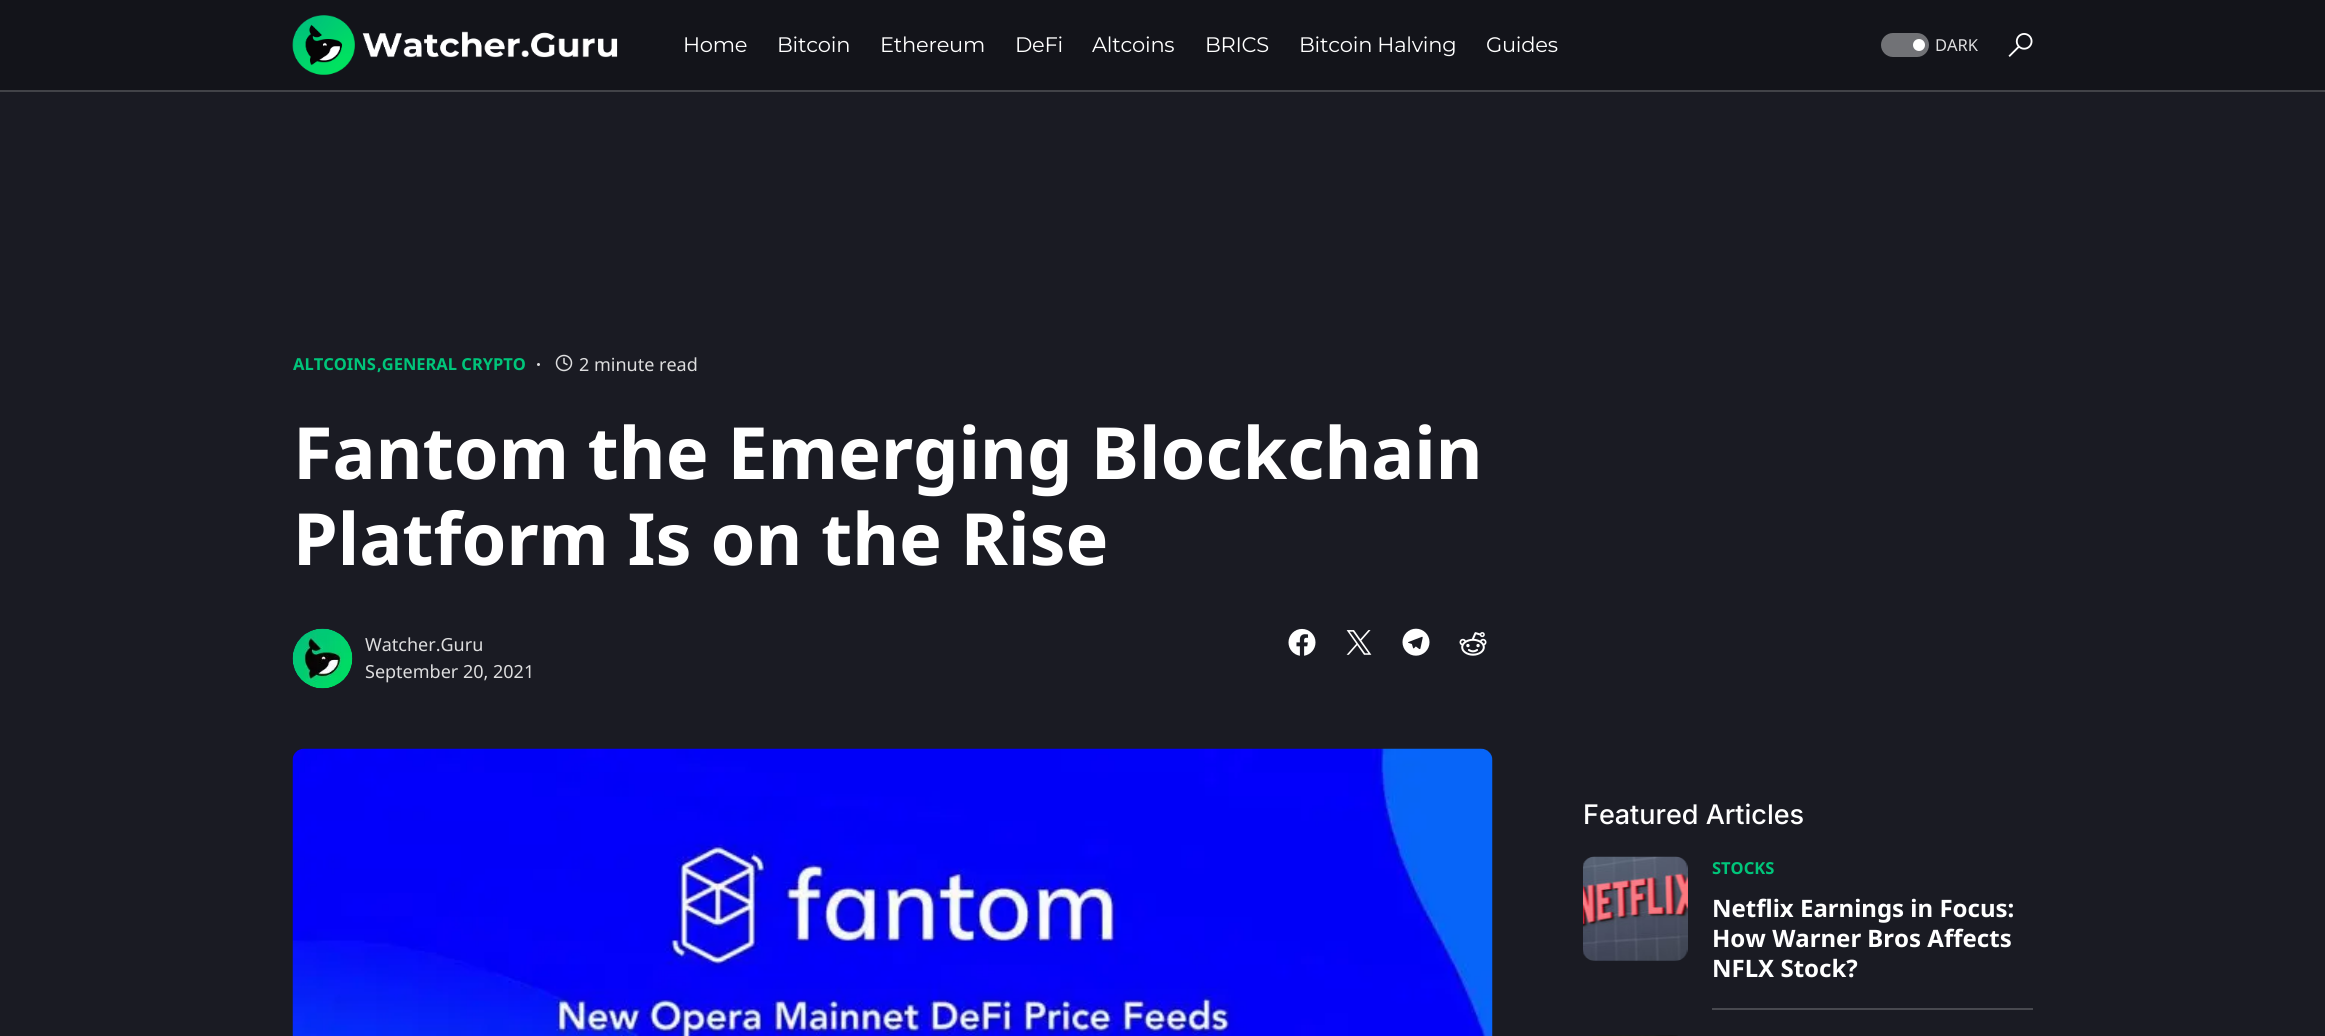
#include <cairo.h>
#include <math.h>
#include <stddef.h>

static cairo_t *c;
static void C(unsigned color){cairo_set_source_rgb(c, (color >> 16) / 255.0, (color >> 8 & 255) / 255.0, (color & 255) / 255.0);}
static void F(const char *family, double size, int italic, int bold){cairo_select_font_face(c, family, italic ? CAIRO_FONT_SLANT_ITALIC : CAIRO_FONT_SLANT_NORMAL,bold ? CAIRO_FONT_WEIGHT_BOLD : CAIRO_FONT_WEIGHT_NORMAL);cairo_set_font_size(c, size);}
static void T(double x, double y, const char *s){cairo_move_to(c, x, y);cairo_show_text(c, s);}
static void L(double x, double y, const char *s, double letter, double word){cairo_move_to(c, x, y);while (*s) {char ch[5] = {0};int n = 0;do ch[n++] = *s++; while ((*s & 0xC0) == 0x80);cairo_show_text(c, ch);cairo_rel_move_to(c, letter + word * (*ch == ' '), 0);}}
static void R(double x, double y, double w, double h){cairo_rectangle(c, x, y, w, h);cairo_fill(c);}
static void Q(double x, double y, double w, double h, double r){cairo_new_sub_path(c);cairo_arc(c, x + w - r, y + h - r, r, 0, M_PI / 2);cairo_arc(c, x + r, y + h - r, r, M_PI / 2, M_PI);cairo_arc(c, x + r, y + r, r, M_PI, 1.5 * M_PI);cairo_arc(c, x + w - r, y + r, r, 1.5 * M_PI, 2 * M_PI);cairo_close_path(c);}
static void I(const char *path, double x, double y, double w, double h){cairo_surface_t *image = cairo_image_surface_create_from_png(path);cairo_save(c);cairo_set_source_surface(c, image, x, y);cairo_rectangle(c, x, y, w, h);cairo_fill(c);cairo_restore(c);cairo_surface_destroy(image);}
int main(void) {
cairo_surface_t *surface = cairo_image_surface_create(CAIRO_FORMAT_RGB24, 2325, 1036);
c = cairo_create(surface);
cairo_font_options_t *options = cairo_font_options_create();
cairo_font_options_set_hint_metrics(options, CAIRO_HINT_METRICS_OFF);
cairo_font_options_set_hint_style(options, CAIRO_HINT_STYLE_NONE);
cairo_set_font_options(c, options);
cairo_set_miter_limit(c, 4);
C(0x1a1b23);
cairo_paint(c);
C(0x13141a);
R(0,0,2325,90);
C(0x424348);
R(0,90,2325,2);
I("1.png",292,15,326,60);
F("Montserrat Thin",21,0,0);
C(0xffffff);
L(683,52,"Home",-.25,0);
L(777,52,"Bitcoin",-.25,0);
L(880,52,"Ethereum",-.25,0);
L(1015,52,"DeFi",-.25,0);
L(1092,52,"Altcoins",-.25,0);
L(1205,52,"BRICS",-.25,0);
L(1299,52,"Bitcoin Halving",-.25,0);
L(1486,52,"Guides",-.25,0);
C(0x717276);
Q(1881,33,48,24,12);
cairo_fill(c);
C(0xffffff);
cairo_arc(c,1919,45,6,0,2 * M_PI);
cairo_fill(c);
F("Noto Sans",16.5,0,0);
C(0xddddde);
T(1935,51,"DARK");
I("2.png",2008,33,25,24);
F("Noto Sans",16.5,0,1);
C(0x00c57a);
T(293,370,"ALTCOINS");
T(377,370,",GENERAL CRYPTO");
C(0xddddde);
cairo_new_path(c);
cairo_arc(c,538.5,364.5,1.5,0,2 * M_PI);
cairo_fill(c);
I("3.png",555,354,18,18);
F("Noto Sans",18,0,0);
T(579,371,"2 minute read");
F("Noto Sans",72,0,1);
C(0xffffff);
T(293,479,"Fantom the Emerging Blockchain");
T(293,565,"Platform Is on the Rise");
I("4.png",292,628,61,61);
F("Noto Sans",18,0,0);
C(0xddddde);
T(365,651,"Watcher.Guru");
T(365,678,"September 20, 2021");
I("5.png",1288,628,28,28);
I("6.png",1346,630,26,25);
I("7.png",1402,628,28,28);
I("8.png",1459,632,28,24);
I("9.png",292,748,1201,288);
F("Inter Medium",27,0,0);
C(0xffffff);
T(1583,824,"Featured Articles");
I("10.png",1583,856,105,105);
F("Noto Sans",16.5,0,1);
C(0x00c57a);
T(1712,874,"STOCKS");
F("Noto Sans",24,0,1);
C(0xffffff);
T(1712,917,"Netflix Earnings in Focus:");
T(1712,947,"How Warner Bros Affects");
T(1712,977,"NFLX Stock?");
C(0x48494f);
R(1712,1008,321,2);
I("11.png",1592,1035,86,1);
cairo_surface_write_to_png(surface, "o.png");
cairo_font_options_destroy(options);
cairo_destroy(c);
cairo_surface_destroy(surface);
return 0;
}
